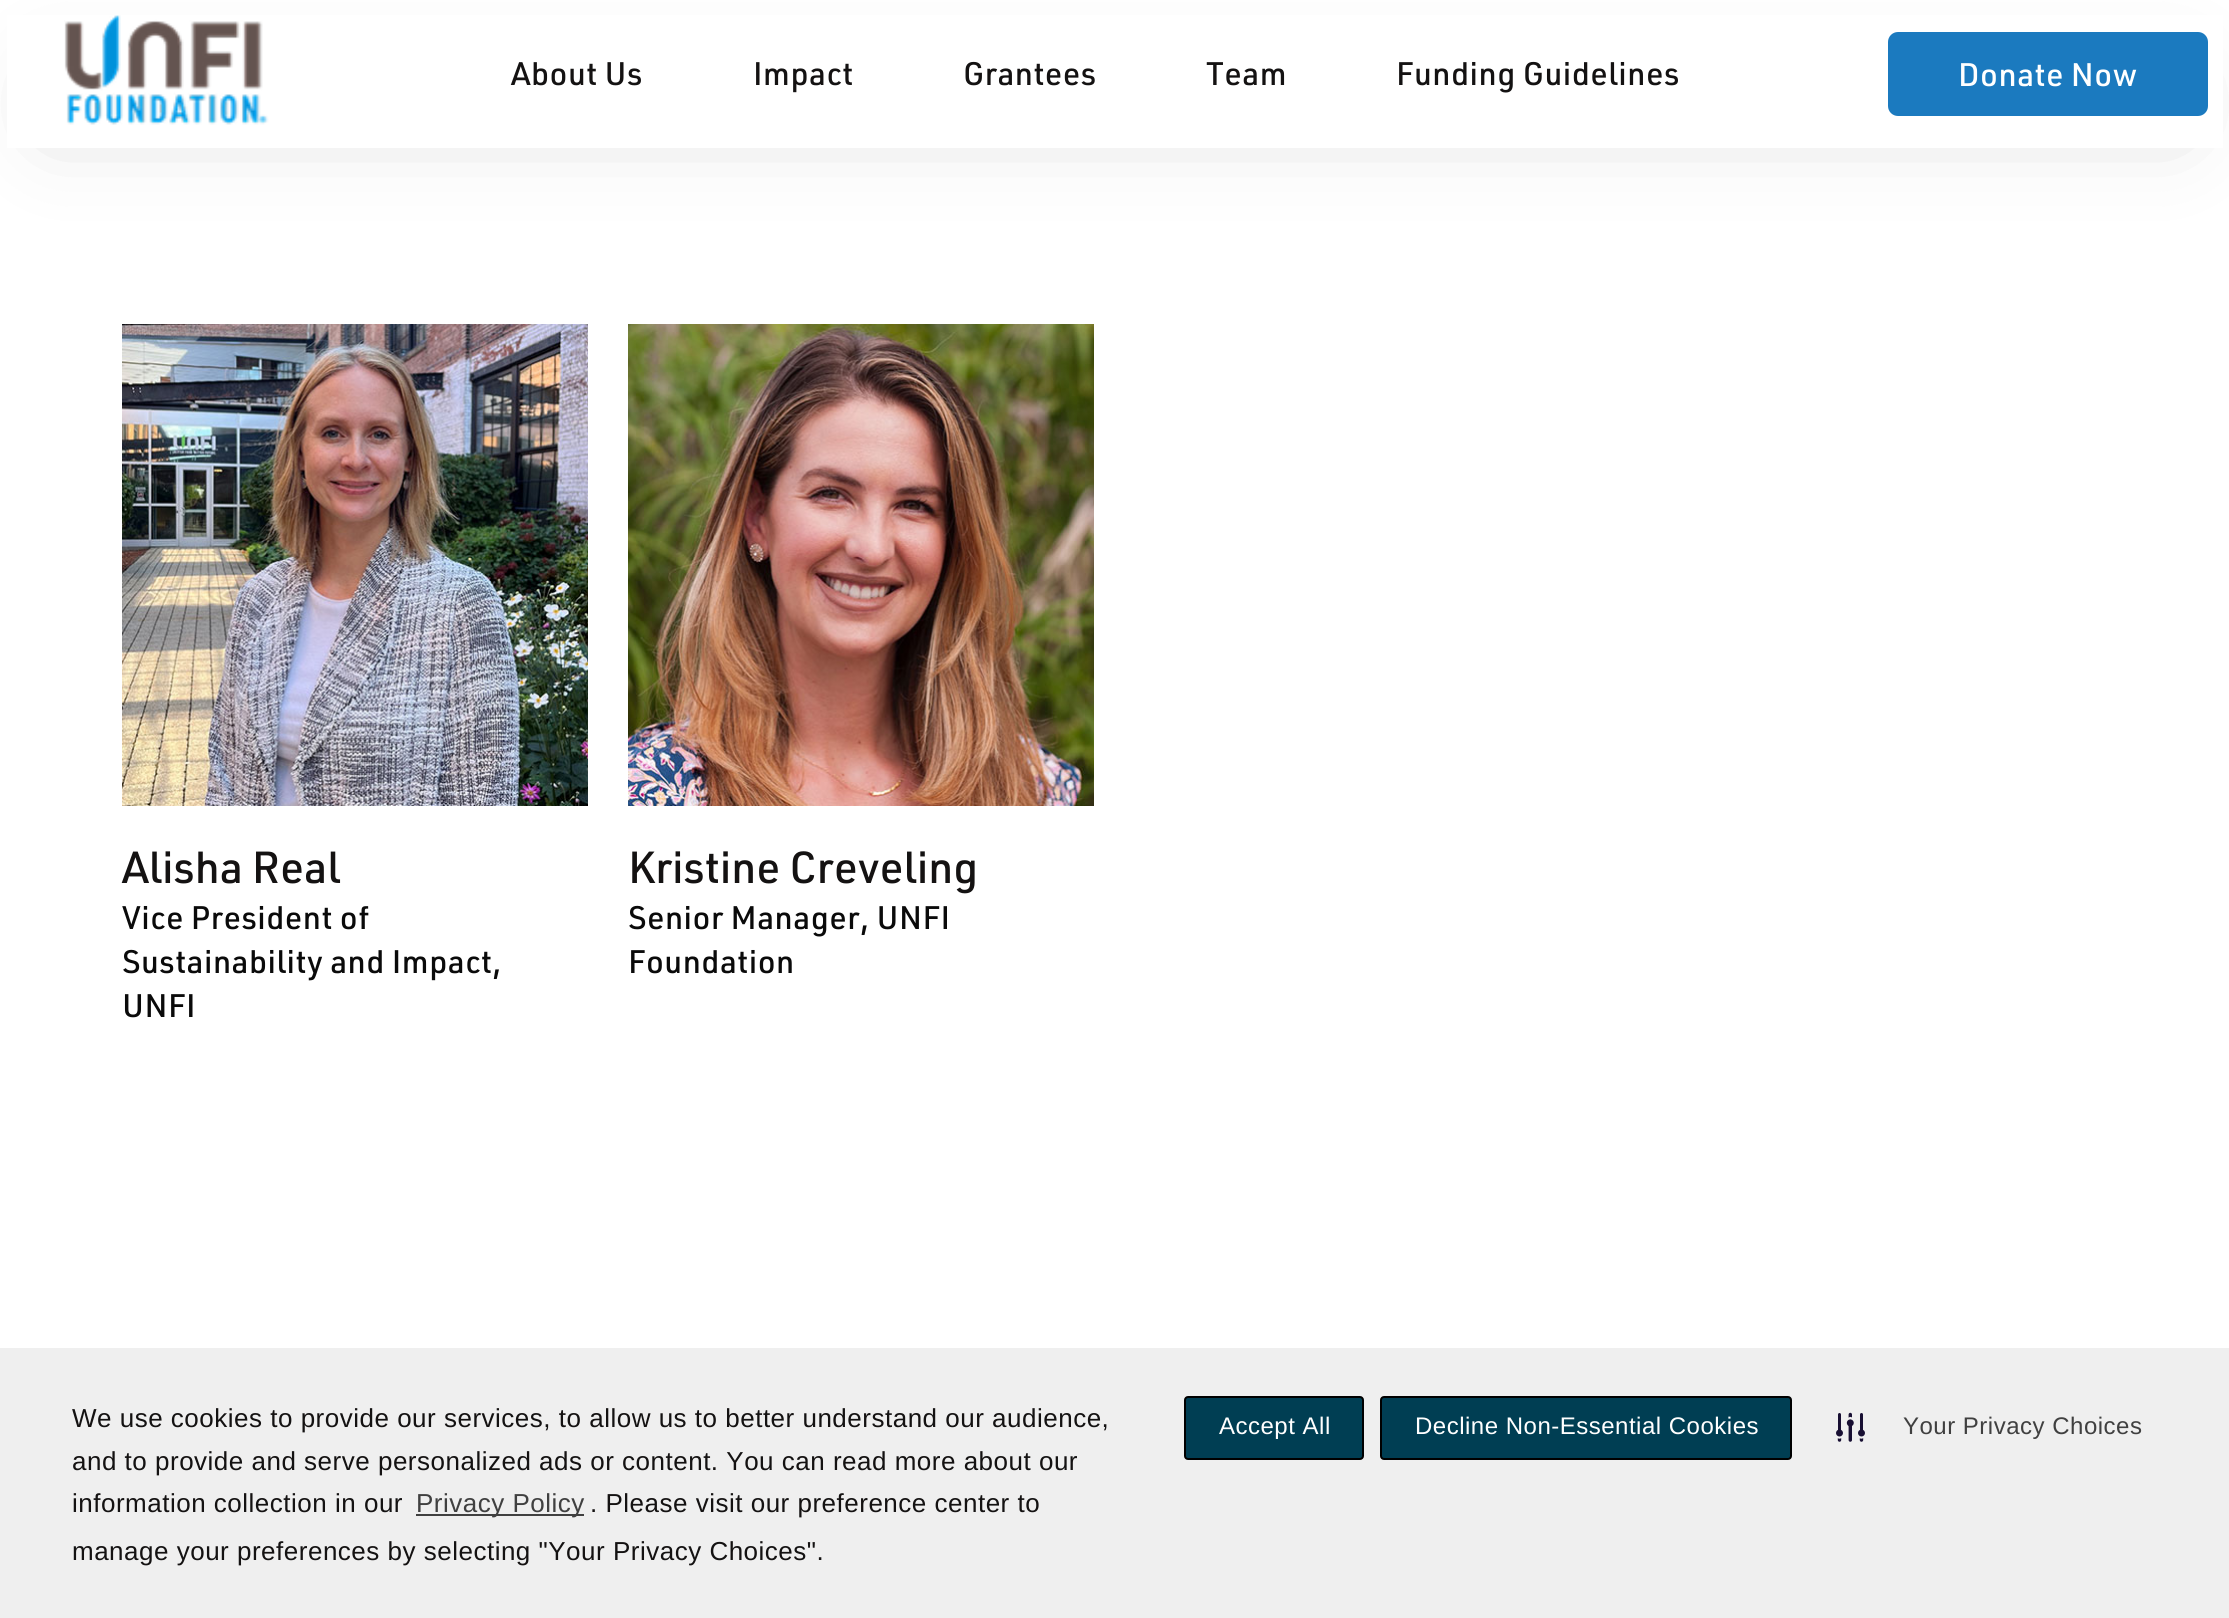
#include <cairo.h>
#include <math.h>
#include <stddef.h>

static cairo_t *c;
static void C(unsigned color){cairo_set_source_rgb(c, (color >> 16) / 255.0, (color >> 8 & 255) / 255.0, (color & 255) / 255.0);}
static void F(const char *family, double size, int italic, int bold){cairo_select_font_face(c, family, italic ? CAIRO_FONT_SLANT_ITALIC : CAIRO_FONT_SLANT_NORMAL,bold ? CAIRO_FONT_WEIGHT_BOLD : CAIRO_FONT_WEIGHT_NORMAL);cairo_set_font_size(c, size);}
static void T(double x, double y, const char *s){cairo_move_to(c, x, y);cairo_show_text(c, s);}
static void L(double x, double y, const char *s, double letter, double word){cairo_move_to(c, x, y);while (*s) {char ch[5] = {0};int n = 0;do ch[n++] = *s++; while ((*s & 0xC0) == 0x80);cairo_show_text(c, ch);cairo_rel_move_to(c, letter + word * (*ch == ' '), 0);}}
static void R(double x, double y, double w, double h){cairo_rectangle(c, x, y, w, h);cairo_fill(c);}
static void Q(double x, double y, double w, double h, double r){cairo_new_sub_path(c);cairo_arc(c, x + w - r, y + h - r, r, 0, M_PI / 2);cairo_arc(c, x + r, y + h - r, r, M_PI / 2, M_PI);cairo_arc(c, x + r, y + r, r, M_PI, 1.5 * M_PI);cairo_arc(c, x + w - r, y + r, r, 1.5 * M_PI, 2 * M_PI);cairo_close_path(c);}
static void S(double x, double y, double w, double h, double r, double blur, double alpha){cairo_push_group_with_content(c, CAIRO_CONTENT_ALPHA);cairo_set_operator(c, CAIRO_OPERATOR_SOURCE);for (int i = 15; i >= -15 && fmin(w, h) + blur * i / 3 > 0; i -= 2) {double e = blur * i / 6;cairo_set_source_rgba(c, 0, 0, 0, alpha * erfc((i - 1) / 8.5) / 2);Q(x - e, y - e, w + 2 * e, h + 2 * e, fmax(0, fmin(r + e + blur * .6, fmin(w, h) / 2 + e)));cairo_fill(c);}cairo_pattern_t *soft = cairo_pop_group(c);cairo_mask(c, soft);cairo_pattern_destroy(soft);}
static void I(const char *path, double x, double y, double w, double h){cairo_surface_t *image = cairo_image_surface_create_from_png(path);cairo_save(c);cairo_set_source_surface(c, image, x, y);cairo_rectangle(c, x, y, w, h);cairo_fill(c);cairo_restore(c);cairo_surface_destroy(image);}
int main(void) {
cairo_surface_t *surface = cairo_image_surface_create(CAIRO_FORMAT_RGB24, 2229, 1618);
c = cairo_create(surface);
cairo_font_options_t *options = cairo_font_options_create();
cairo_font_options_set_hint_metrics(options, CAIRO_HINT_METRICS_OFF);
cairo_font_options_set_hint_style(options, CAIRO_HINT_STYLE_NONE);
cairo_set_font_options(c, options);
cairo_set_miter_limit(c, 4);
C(0xffffff);
cairo_paint(c);
C(0x000000);
S(52,82,2126,44,0,44,.17);
C(0xffffff);
R(7,15,2216,133);
I("1.png",64,15,205,110);
F("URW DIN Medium",32,0,0);
C(0x141212);
L(511,85,"About Us",.5,0);
L(753,85,"Impact",.5,0);
L(963,85,"Grantees",.5,0);
L(1206,85,"Team",.5,0);
L(1396,85,"Funding Guidelines",.5,0);
C(0x1b7abf);
Q(1888,32,320,84,10);
cairo_fill(c);
C(0xffffff);
L(1958,86,"Donate Now",.5,0);
C(0xefefef);
R(0,1348,2229,270);
F("Liberation Sans",26,0,0);
C(0x141212);
L(72,1427,"We use cookies to provide our services, to allow us to better understand our audience,",.5,0);
L(72,1470,"and to provide and serve personalized ads or content. You can read more about our",.5,0);
L(72,1512,"information collection in our",.5,0);
C(0x404040);
R(416,1514,168,2);
L(416,1512,"Privacy Policy",.5,0);
C(0x141212);
L(590,1512,". Please visit our preference center to",.5,0);
L(72,1560,"manage your preferences by selecting \"Your Privacy Choices\".",.5,0);
C(0x003e53);
Q(1185,1397,178,62,3);
cairo_fill_preserve(c);
C(0x000000);
cairo_stroke(c);
F("Liberation Sans",24,0,0);
C(0xffffff);
L(1219,1434,"Accept All",.5,0);
C(0x003e53);
Q(1381,1397,410,62,3);
cairo_fill_preserve(c);
C(0x000000);
cairo_stroke(c);
C(0xffffff);
L(1415,1434,"Decline Non-Essential Cookies",.5,0);
I("2.png",1836,1412,29,30);
C(0x404040);
L(1903,1434,"Your Privacy Choices",.5,0);
I("3.png",122,324,466,482);
F("URW DIN Medium",44,0,0);
C(0x141212);
T(122,883,"Alisha Real");
F("URW DIN Medium",32,0,0);
C(0x0a0a0a);
L(122,929,"Vice President of",.5,0);
L(122,973,"Sustainability and Impact,",.5,0);
L(122,1017,"UNFI",.5,0);
I("4.png",628,324,466,482);
F("URW DIN Medium",44,0,0);
C(0x141212);
T(628,883,"Kristine Creveling");
F("URW DIN Medium",32,0,0);
C(0x0a0a0a);
L(628,929,"Senior Manager, UNFI",.5,0);
L(628,973,"Foundation",.5,0);
cairo_surface_write_to_png(surface, "o.png");
cairo_font_options_destroy(options);
cairo_destroy(c);
cairo_surface_destroy(surface);
return 0;
}
